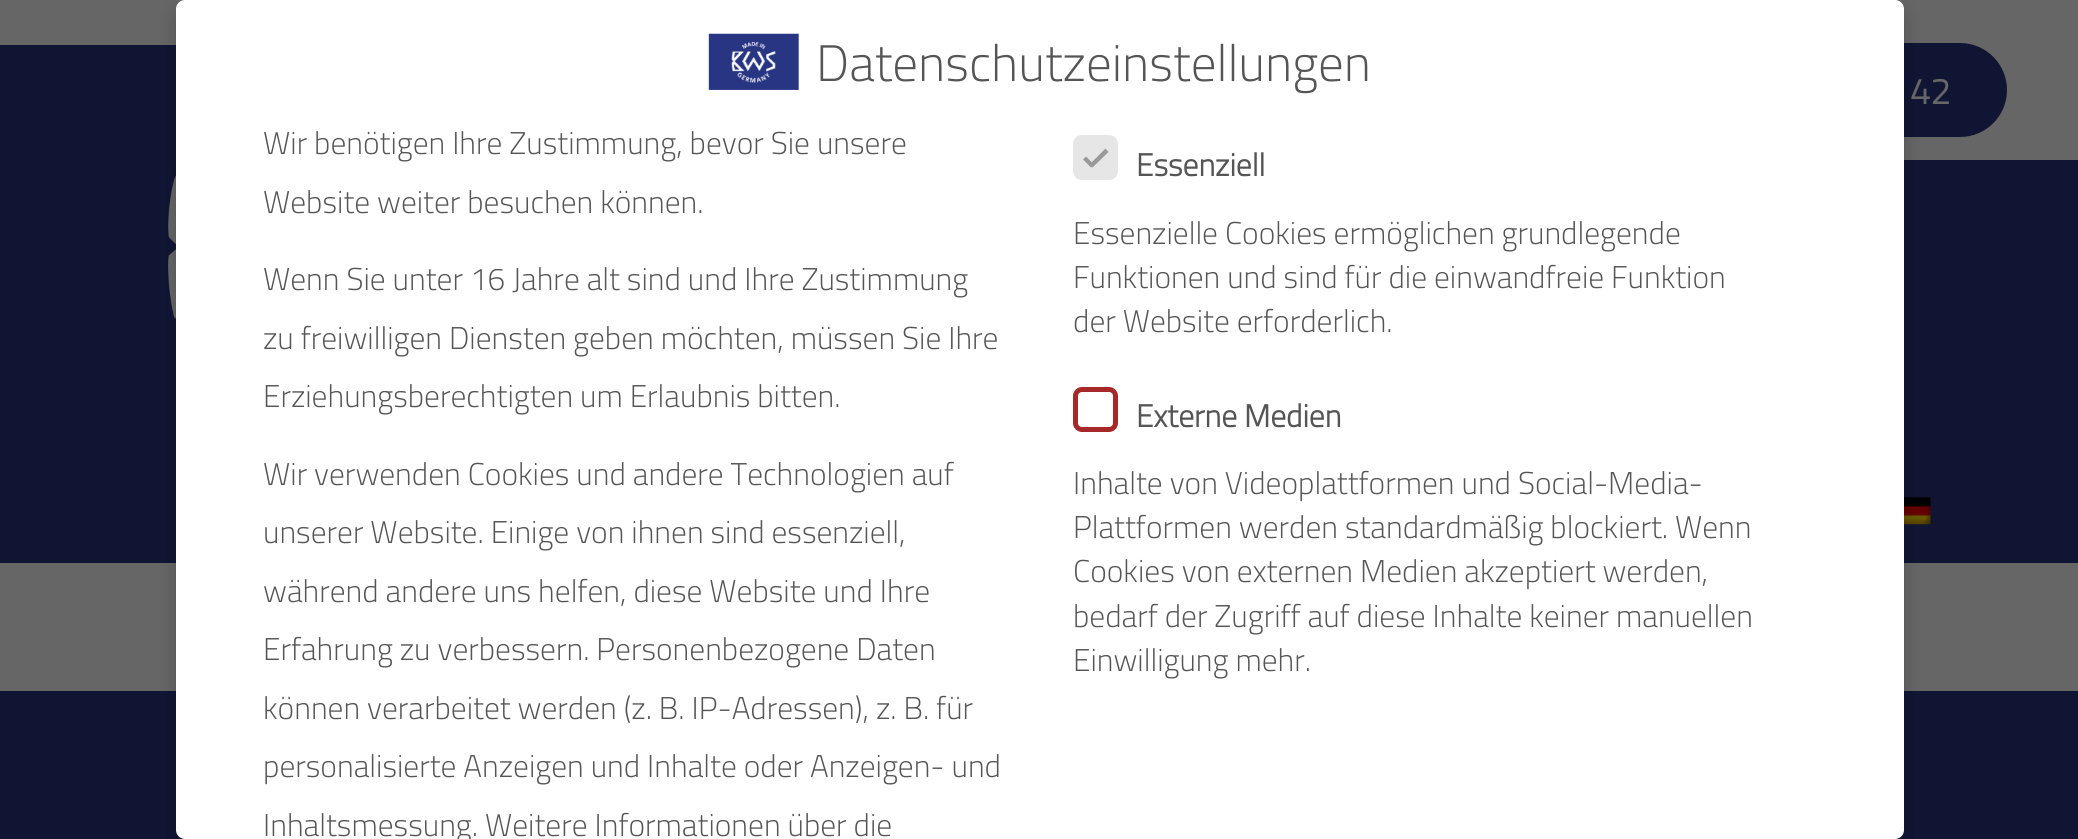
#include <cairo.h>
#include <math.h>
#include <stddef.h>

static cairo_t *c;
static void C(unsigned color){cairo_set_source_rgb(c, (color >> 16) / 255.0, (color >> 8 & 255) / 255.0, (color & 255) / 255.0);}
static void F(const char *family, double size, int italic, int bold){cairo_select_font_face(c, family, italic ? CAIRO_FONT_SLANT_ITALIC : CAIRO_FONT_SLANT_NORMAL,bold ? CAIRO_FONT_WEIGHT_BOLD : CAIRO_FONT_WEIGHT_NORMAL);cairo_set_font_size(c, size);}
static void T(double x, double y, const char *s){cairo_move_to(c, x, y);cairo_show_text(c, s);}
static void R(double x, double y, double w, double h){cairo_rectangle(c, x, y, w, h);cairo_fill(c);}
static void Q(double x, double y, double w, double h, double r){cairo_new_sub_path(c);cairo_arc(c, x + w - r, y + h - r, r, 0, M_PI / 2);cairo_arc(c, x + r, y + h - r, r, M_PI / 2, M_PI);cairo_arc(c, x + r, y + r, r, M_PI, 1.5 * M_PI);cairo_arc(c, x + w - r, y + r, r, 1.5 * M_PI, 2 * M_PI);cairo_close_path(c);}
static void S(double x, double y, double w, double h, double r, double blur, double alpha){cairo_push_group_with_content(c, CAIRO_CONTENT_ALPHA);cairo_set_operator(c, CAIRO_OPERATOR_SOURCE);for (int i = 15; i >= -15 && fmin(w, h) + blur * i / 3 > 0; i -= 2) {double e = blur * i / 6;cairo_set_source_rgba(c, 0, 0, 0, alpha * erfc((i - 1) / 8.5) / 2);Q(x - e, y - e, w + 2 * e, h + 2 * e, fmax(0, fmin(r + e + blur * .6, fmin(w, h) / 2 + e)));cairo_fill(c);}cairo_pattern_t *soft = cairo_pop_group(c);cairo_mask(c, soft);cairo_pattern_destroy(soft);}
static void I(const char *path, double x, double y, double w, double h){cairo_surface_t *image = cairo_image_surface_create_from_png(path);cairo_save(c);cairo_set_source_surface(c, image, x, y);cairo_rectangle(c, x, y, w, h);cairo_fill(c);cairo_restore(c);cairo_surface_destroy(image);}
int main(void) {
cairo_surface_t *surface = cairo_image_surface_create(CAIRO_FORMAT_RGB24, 2078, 839);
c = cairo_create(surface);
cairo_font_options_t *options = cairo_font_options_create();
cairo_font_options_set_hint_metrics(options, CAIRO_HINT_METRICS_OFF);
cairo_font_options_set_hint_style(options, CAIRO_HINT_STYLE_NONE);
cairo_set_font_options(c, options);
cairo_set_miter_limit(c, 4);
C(0x666666);
cairo_paint(c);
C(0x101534);
R(0,160,2078,403);
I("2.png",0,45,176,359);
I("3.png",1904,497,27,28);
Q(1596,44,410,92,46);
cairo_fill_preserve(c);
cairo_stroke(c);
R(0,691,2078,148);
C(0x000000);
S(176,9,1728,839,9,9,.2);
C(0xffffff);
Q(176,0,1728,839,9);
cairo_fill(c);
I("1.png",708,33,92,57);
F("Cairo Light",51.25,0,0);
C(0x555555);
T(816,81,"Datenschutzeinstellungen");
F("Cairo Light",31.5,0,0);
T(263,154,"Wir benötigen Ihre Zustimmung, bevor Sie unsere");
T(263,213,"Website weiter besuchen können.");
T(263,290,"Wenn Sie unter 16 Jahre alt sind und Ihre Zustimmung");
T(263,349,"zu freiwilligen Diensten geben möchten, müssen Sie Ihre");
T(263,407,"Erziehungsberechtigten um Erlaubnis bitten.");
T(263,485,"Wir verwenden Cookies und andere Technologien auf");
T(263,543,"unserer Website. Einige von ihnen sind essenziell,");
T(263,602,"während andere uns helfen, diese Website und Ihre");
T(263,660,"Erfahrung zu verbessern. Personenbezogene Daten");
T(263,719,"können verarbeitet werden (z. B. IP-Adressen), z. B. für");
T(263,777,"personalisierte Anzeigen und Inhalte oder Anzeigen- und");
T(263,836,"Inhaltsmessung. Weitere Informationen über die");
C(0xe6e6e6);
Q(1075.5,137.5,40,40,6.5);
cairo_fill_preserve(c);
cairo_set_line_width(c,5);
cairo_stroke(c);
C(0x999999);
cairo_new_path(c);
cairo_move_to(c,1105.5,148.5);
cairo_line_to(c,1108.5,152);
cairo_line_to(c,1092.5,167.5);
cairo_line_to(c,1089.5,164.5);
cairo_close_path(c);
cairo_fill(c);
cairo_new_path(c);
cairo_move_to(c,1086,156.5);
cairo_line_to(c,1094,164.5);
cairo_line_to(c,1091,167.5);
cairo_line_to(c,1083,159.5);
cairo_close_path(c);
cairo_fill(c);
F("Cairo",31.5,0,1);
C(0x555555);
T(1136,176,"Essenziell");
F("Cairo Light",31.5,0,0);
T(1073,244,"Essenzielle Cookies ermöglichen grundlegende");
T(1073,288,"Funktionen und sind für die einwandfreie Funktion");
T(1073,332,"der Website erforderlich.");
Q(1075.5,389.5,40,40,6.5);
C(0xa72828);
cairo_stroke(c);
F("Cairo",31.5,0,1);
C(0x555555);
T(1136,427,"Externe Medien");
F("Cairo Light",31.5,0,0);
T(1073,494,"Inhalte von Videoplattformen und Social-Media-");
T(1073,538,"Plattformen werden standardmäßig blockiert. Wenn");
T(1073,582,"Cookies von externen Medien akzeptiert werden,");
T(1073,627,"bedarf der Zugriff auf diese Inhalte keiner manuellen");
T(1073,671,"Einwilligung mehr.");
F("Cairo",36,0,1);
C(0x666666);
T(1910,104,"42");
cairo_surface_write_to_png(surface, "o.png");
cairo_font_options_destroy(options);
cairo_destroy(c);
cairo_surface_destroy(surface);
return 0;
}
